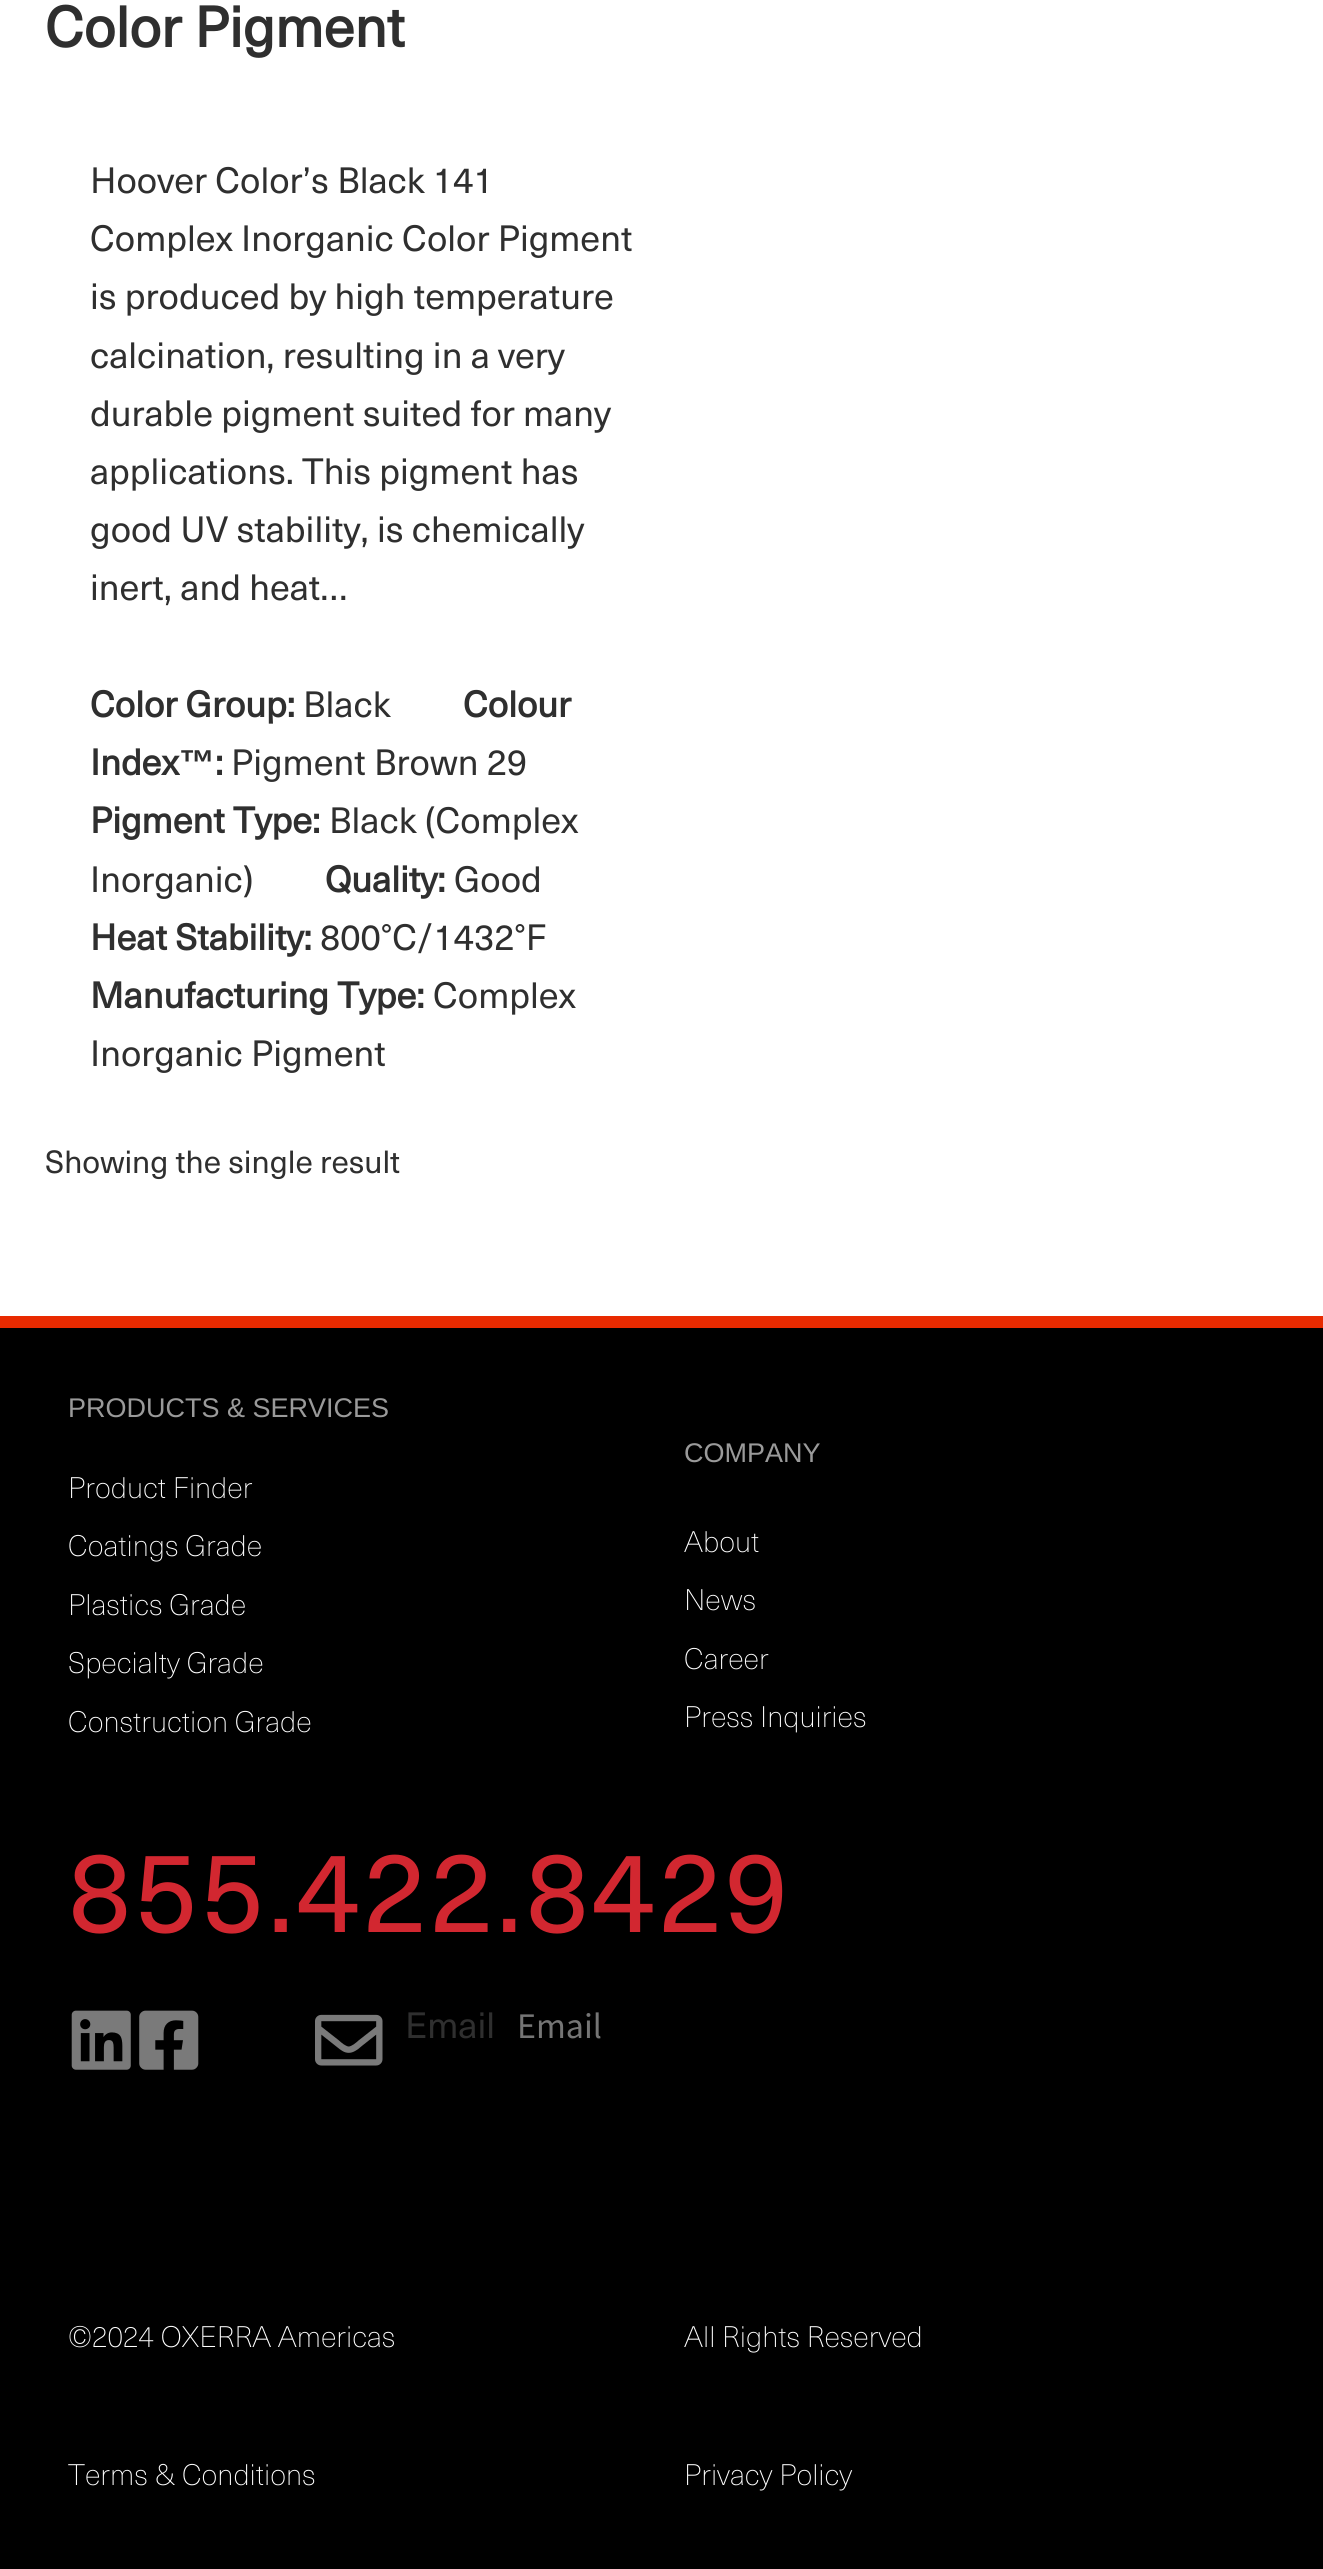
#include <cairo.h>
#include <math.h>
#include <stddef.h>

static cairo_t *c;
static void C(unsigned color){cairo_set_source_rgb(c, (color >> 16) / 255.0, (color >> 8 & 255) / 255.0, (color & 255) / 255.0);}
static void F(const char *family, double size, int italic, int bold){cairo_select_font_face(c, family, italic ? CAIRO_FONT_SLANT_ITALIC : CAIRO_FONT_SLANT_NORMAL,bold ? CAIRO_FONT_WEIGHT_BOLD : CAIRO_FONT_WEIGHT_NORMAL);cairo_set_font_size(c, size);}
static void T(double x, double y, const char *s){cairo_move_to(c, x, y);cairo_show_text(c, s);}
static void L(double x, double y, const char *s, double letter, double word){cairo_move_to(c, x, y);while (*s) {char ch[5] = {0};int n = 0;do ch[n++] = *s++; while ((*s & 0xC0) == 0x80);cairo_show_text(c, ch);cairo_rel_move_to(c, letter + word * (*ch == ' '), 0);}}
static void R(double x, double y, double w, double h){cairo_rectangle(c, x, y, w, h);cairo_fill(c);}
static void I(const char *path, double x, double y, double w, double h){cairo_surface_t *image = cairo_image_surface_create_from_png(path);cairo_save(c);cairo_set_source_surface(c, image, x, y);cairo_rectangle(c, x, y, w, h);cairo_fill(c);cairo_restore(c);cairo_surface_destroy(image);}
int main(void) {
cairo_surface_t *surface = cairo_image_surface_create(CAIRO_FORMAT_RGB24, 1323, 2569);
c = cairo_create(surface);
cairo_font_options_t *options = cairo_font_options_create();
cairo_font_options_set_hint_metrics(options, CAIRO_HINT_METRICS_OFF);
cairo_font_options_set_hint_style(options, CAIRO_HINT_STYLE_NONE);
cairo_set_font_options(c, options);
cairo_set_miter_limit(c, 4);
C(0xffffff);
cairo_paint(c);
F("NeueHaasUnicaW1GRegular",56.25,0,1);
C(0x2f2f2f);
T(45,47,"Color Pigment");
F("NeueHaasUnicaW1GRegular",36,0,0);
T(90,193,"Hoover Color’s Black 141");
T(90,251,"Complex Inorganic Color Pigment");
T(90,309,"is produced by high temperature");
T(90,368,"calcination, resulting in a very");
T(90,426,"durable pigment suited for many");
T(90,484,"applications. This pigment has");
T(90,542,"good UV stability, is chemically");
T(90,600,"inert, and heat…");
F("NeueHaasUnicaW1GRegular",36,0,1);
T(90,717,"Color Group:");
F("NeueHaasUnicaW1GRegular",36,0,0);
T(303,717,"Black");
F("NeueHaasUnicaW1GRegular",36,0,1);
T(463,717,"Colour");
T(90,775,"Index");
F("Liberation Sans",36,0,1);
T(179,775,"™");
F("NeueHaasUnicaW1GRegular",36,0,1);
T(215,775,":");
F("NeueHaasUnicaW1GRegular",36,0,0);
T(231,775,"Pigment Brown 29");
F("NeueHaasUnicaW1GRegular",36,0,1);
T(90,833,"Pigment Type:");
F("NeueHaasUnicaW1GRegular",36,0,0);
T(329,833,"Black (Complex");
T(90,892,"Inorganic)");
F("NeueHaasUnicaW1GRegular",36,0,1);
T(325,892,"Quality:");
F("NeueHaasUnicaW1GRegular",36,0,0);
T(454,892,"Good");
F("NeueHaasUnicaW1GRegular",36,0,1);
T(90,950,"Heat Stability:");
F("NeueHaasUnicaW1GRegular",36,0,0);
T(320,950,"800°C/1432°F");
F("NeueHaasUnicaW1GRegular",36,0,1);
T(90,1008,"Manufacturing Type:");
F("NeueHaasUnicaW1GRegular",36,0,0);
T(433,1008,"Complex");
T(90,1066,"Inorganic Pigment");
F("NeueHaasUnicaW1GRegular",31.5,0,0);
T(45,1173,"Showing the single result");
C(0x000000);
R(0,1328,1323,1241);
C(0xe82a00);
R(0,1316,1323,12);
F("Liberation Sans",27,0,0);
C(0x9a9a9a);
T(68,1417,"PRODUCTS & SERVICES");
F("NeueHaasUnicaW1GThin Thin",29.25,0,0);
C(0xffffff);
T(68,1498,"Product Finder");
T(68,1556,"Coatings Grade");
T(68,1615,"Plastics Grade");
T(68,1673,"Specialty Grade");
T(68,1732,"Construction Grade");
F("Liberation Sans",27,0,0);
C(0x9a9a9a);
T(684,1462,"COMPANY");
F("NeueHaasUnicaW1GThin Thin",29.25,0,0);
C(0xffffff);
T(684,1552,"About");
T(684,1610,"News");
T(684,1669,"Career");
T(684,1727,"Press Inquiries");
F("NeueHaasUnicaW1GRegular",112.5,0,0);
C(0xd22730);
L(68,1932,"855.422.8429",3.4,0);
I("1.png",71,2010,60,60);
I("2.png",139,2010,60,60);
I("3.png",315,2014,68,52);
F("NeueHaasUnicaW1GRegular",36,0,0);
C(0x2f2f2f);
T(405,2038,"Email");
F("Source Sans Pro",36,0,0);
C(0x757575);
T(517,2038,"Email");
F("NeueHaasUnicaW1GThin Thin",29.25,0,0);
C(0xffffff);
T(68,2347,"©2024 OXERRA Americas");
T(684,2347,"All Rights Reserved");
T(68,2485,"Terms & Conditions");
T(684,2485,"Privacy Policy");
cairo_surface_write_to_png(surface, "o.png");
cairo_font_options_destroy(options);
cairo_destroy(c);
cairo_surface_destroy(surface);
return 0;
}
